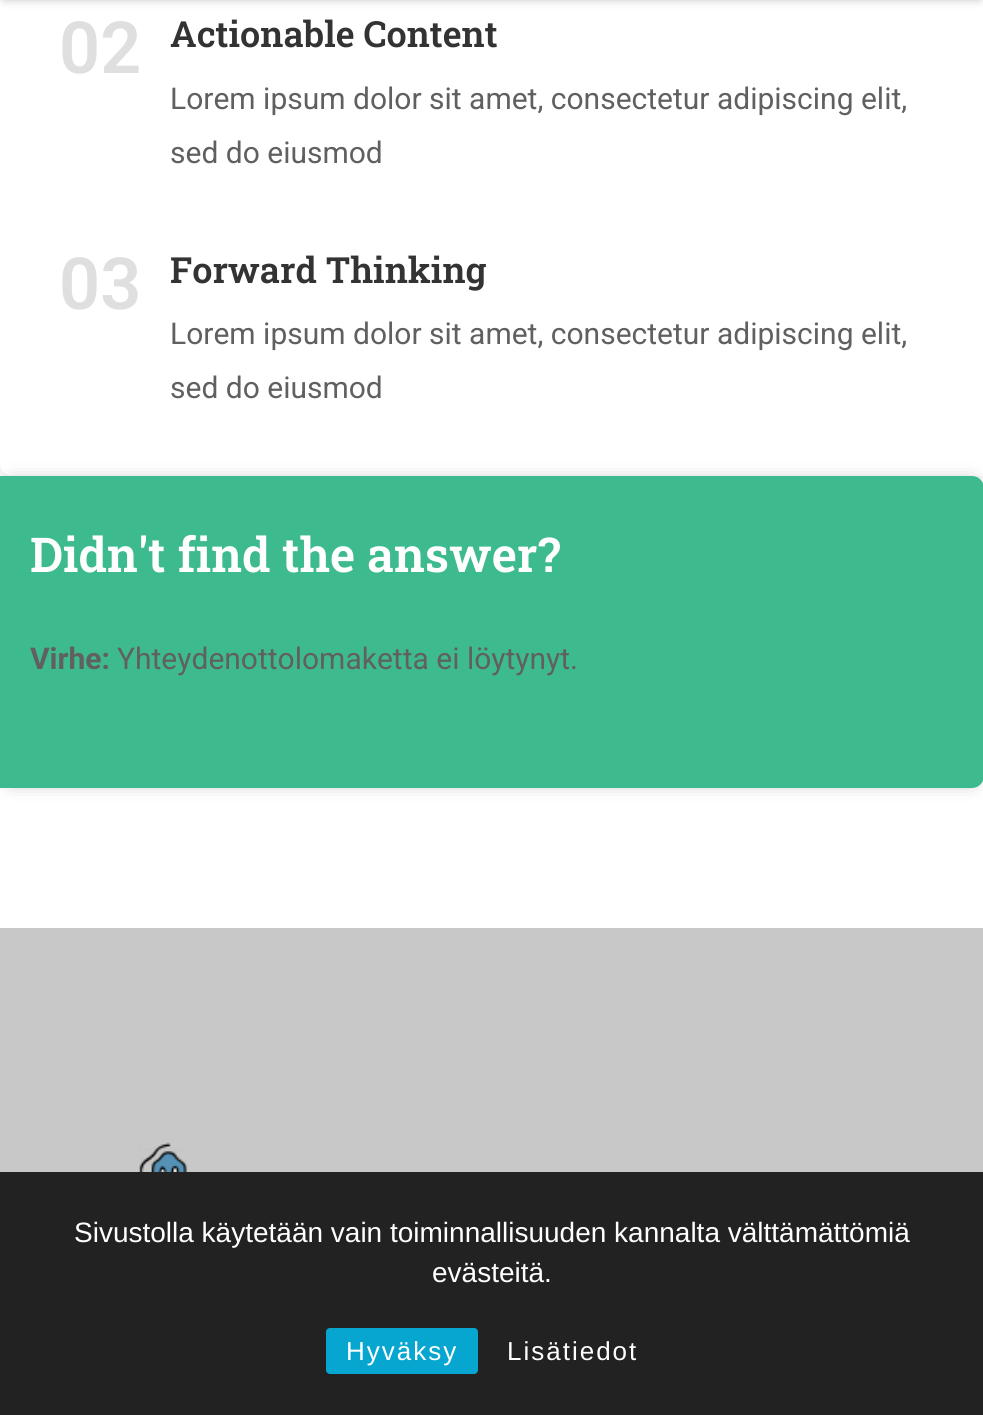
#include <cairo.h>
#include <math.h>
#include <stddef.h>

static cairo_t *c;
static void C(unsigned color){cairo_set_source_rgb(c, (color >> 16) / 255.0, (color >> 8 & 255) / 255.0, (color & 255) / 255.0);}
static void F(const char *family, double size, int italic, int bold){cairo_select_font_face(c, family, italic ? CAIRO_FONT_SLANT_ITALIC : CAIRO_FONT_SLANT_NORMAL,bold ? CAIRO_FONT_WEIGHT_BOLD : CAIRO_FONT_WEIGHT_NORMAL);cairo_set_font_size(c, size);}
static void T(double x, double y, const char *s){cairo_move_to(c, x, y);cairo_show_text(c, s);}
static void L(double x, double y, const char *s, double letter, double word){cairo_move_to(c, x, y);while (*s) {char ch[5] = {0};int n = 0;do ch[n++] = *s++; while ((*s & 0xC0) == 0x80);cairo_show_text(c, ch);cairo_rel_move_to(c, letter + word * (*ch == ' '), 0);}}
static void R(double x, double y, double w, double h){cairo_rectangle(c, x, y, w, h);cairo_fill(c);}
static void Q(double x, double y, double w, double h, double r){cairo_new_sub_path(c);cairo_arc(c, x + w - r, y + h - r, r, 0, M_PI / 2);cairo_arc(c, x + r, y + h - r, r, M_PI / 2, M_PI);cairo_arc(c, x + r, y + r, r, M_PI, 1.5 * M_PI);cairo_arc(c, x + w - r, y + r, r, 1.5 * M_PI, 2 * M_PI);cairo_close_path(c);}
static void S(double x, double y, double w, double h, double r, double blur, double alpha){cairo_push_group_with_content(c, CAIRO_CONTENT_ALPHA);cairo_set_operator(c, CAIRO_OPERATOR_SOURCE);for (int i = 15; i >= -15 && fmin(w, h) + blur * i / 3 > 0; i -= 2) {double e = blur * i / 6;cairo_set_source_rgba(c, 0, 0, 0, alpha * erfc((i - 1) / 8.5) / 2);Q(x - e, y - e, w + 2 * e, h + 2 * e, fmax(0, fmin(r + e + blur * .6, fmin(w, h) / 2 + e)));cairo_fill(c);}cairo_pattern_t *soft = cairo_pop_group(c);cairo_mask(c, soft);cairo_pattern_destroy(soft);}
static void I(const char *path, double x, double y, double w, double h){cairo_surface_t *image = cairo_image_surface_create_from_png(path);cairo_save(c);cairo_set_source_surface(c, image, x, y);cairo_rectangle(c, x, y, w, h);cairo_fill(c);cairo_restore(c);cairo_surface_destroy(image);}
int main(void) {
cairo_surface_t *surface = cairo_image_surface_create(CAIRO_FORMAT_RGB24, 983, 1415);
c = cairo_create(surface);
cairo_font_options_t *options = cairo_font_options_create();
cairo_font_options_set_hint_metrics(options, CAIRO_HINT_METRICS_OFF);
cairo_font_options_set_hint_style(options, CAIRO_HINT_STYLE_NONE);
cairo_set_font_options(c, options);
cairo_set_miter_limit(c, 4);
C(0xffffff);
cairo_paint(c);
C(0x000000);
S(10,-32,964,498,2,10,.5);
C(0xffffff);
cairo_new_path(c);
cairo_move_to(c,12,-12);
cairo_line_to(c,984,-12);
cairo_line_to(c,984,476);
cairo_line_to(c,12,476);
cairo_curve_to(c,5.5,476,0,470.5,0,464);
cairo_line_to(c,0,0);
cairo_curve_to(c,0,-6.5,5.5,-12,12,-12);
cairo_close_path(c);
cairo_fill(c);
C(0x2a2a2a);
S(4,-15,976,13,0,5,.4);
F("Roboto SemiBold",72,0,0);
C(0xdfdfdf);
T(59,73,"02");
F("Roboto Slab SemiBold",36,0,0);
C(0x333333);
T(170,47,"Actionable Content");
F("Roboto",30,0,0);
C(0x606060);
T(170,109,"Lorem ipsum dolor sit amet, consectetur adipiscing elit,");
T(170,163,"sed do eiusmod");
F("Roboto SemiBold",72,0,0);
C(0xdfdfdf);
T(59,309,"03");
F("Roboto Slab SemiBold",36,0,0);
C(0x333333);
T(170,283,"Forward Thinking");
F("Roboto",30,0,0);
C(0x606060);
T(170,344,"Lorem ipsum dolor sit amet, consectetur adipiscing elit,");
T(170,398,"sed do eiusmod");
C(0x000000);
S(10,486,964,292,2,10,.5);
C(0x3ebb8e);
cairo_new_path(c);
cairo_move_to(c,0,476);
cairo_line_to(c,972,476);
cairo_curve_to(c,978.5,476,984,481.5,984,488);
cairo_line_to(c,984,776);
cairo_curve_to(c,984,782.5,978.5,788,972,788);
cairo_line_to(c,0,788);
cairo_close_path(c);
cairo_fill(c);
F("Roboto Slab SemiBold",48,0,0);
C(0xffffff);
T(30,572,"Didn't find the answer?");
F("Roboto",30,0,1);
C(0x606060);
T(30,669,"Virhe:");
F("Roboto",30,0,0);
T(117,669,"Yhteydenottolomaketta ei löytynyt.");
C(0xc9c8c8);
R(0,928,983,244);
I("1.png",138,1142,49,30);
C(0x222222);
R(0,1172,983,243);
F("Liberation Sans",28,0,0);
C(0xffffff);
T(74,1242,"Sivustolla käytetään vain toiminnallisuuden kannalta välttämättömiä");
T(432,1282,"evästeitä.");
C(0x07a6d0);
Q(326,1328,152,46,4);
cairo_fill(c);
F("Liberation Sans",26,0,0);
C(0xffffff);
L(346,1360,"Hyväksy",2,0);
L(507,1360,"Lisätiedot",2,0);
cairo_surface_write_to_png(surface, "o.png");
cairo_font_options_destroy(options);
cairo_destroy(c);
cairo_surface_destroy(surface);
return 0;
}
